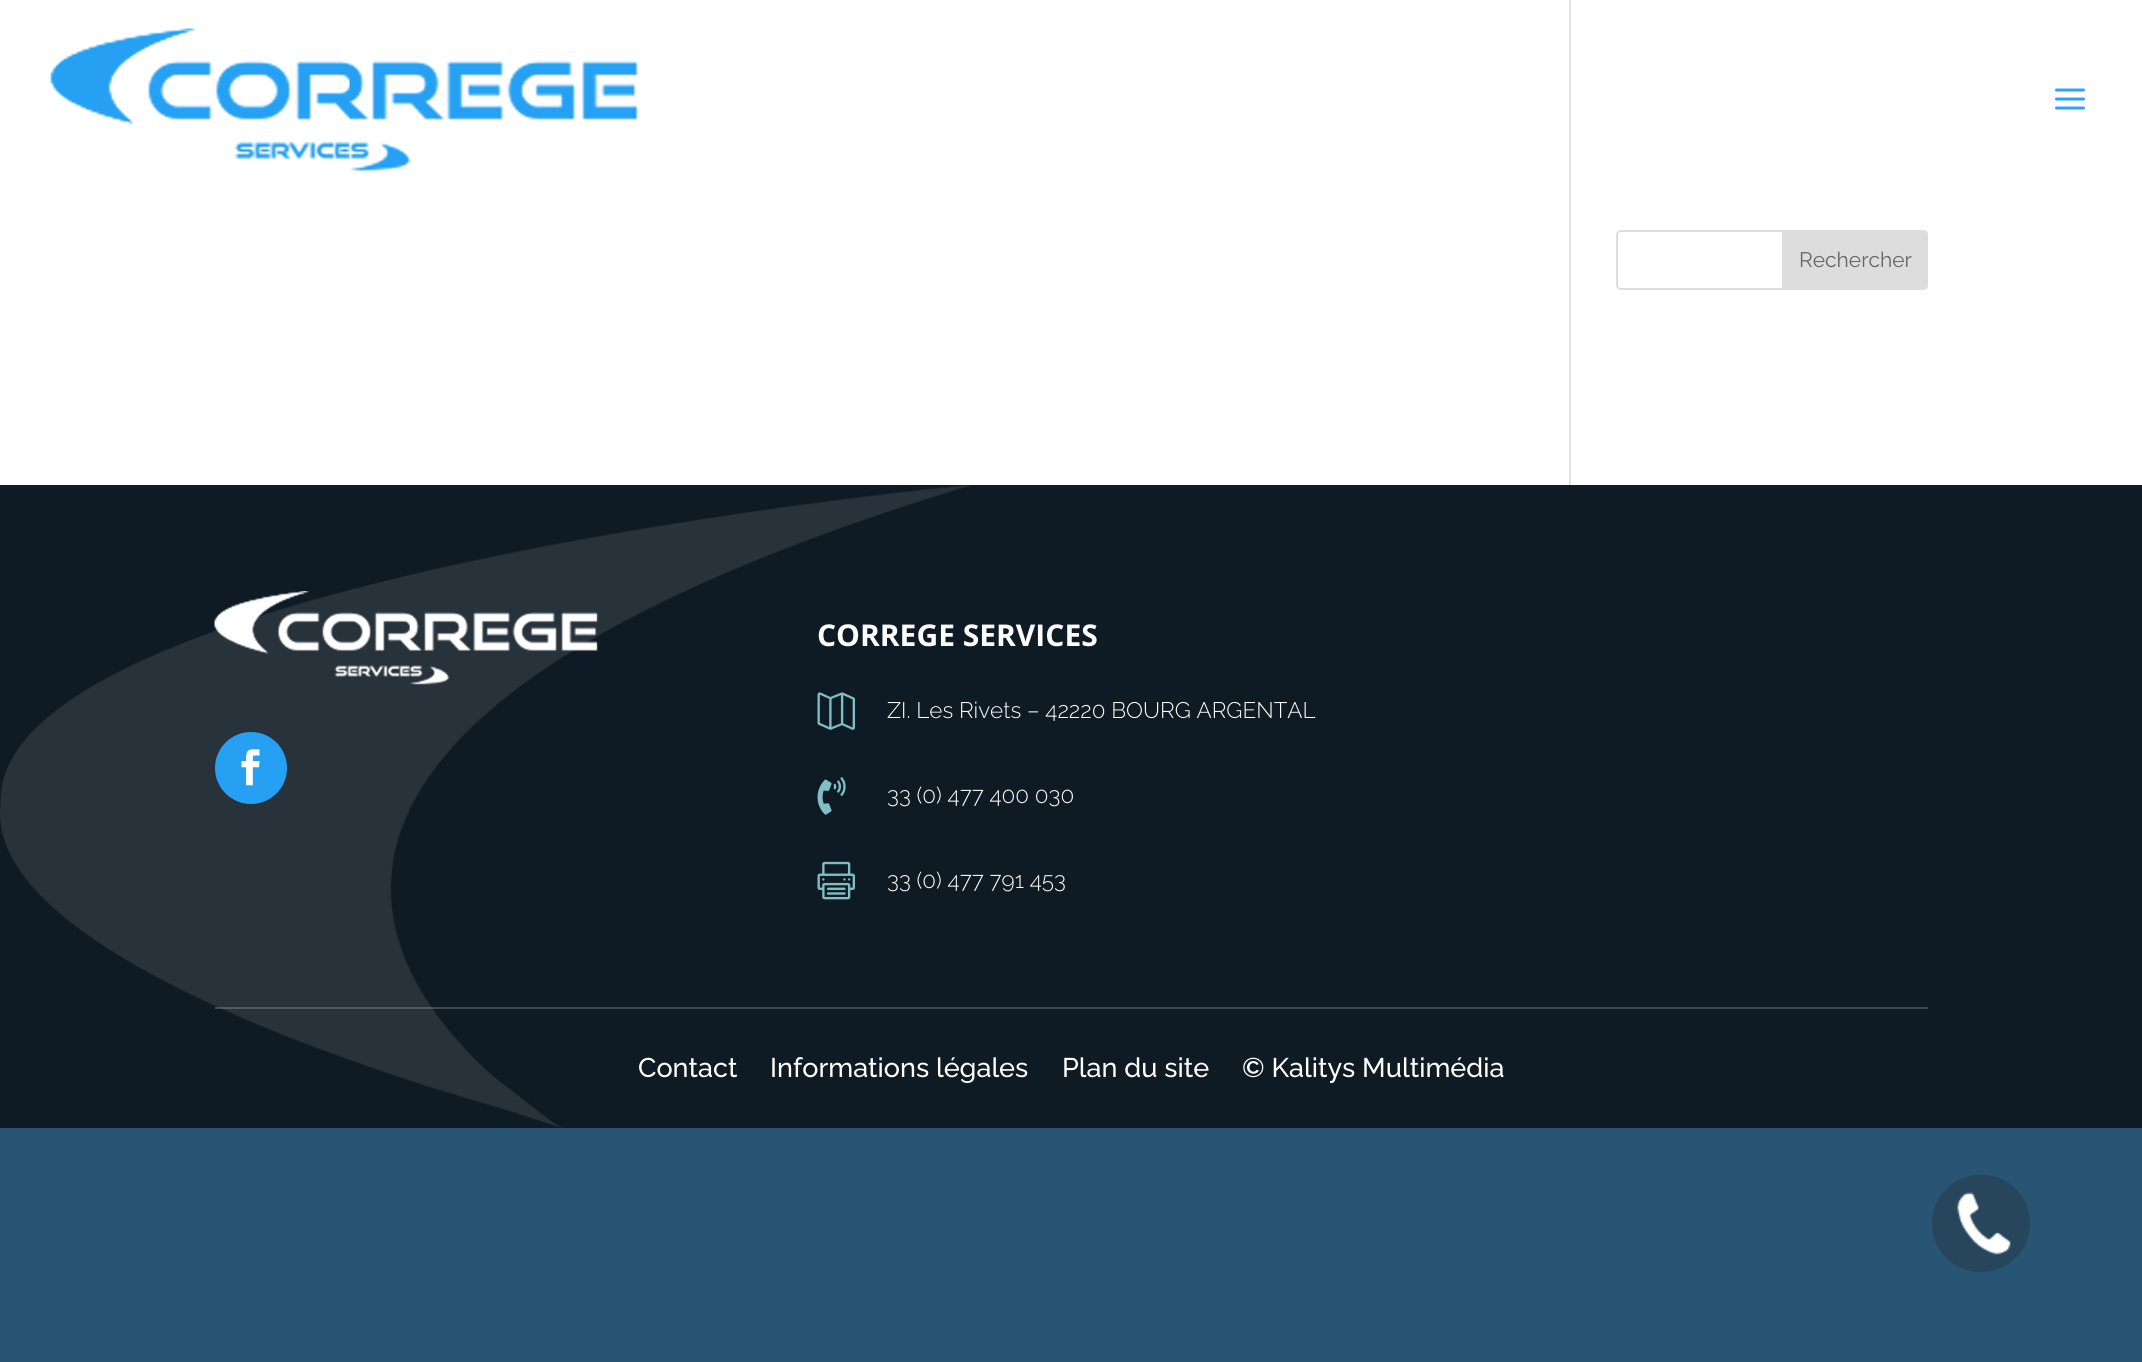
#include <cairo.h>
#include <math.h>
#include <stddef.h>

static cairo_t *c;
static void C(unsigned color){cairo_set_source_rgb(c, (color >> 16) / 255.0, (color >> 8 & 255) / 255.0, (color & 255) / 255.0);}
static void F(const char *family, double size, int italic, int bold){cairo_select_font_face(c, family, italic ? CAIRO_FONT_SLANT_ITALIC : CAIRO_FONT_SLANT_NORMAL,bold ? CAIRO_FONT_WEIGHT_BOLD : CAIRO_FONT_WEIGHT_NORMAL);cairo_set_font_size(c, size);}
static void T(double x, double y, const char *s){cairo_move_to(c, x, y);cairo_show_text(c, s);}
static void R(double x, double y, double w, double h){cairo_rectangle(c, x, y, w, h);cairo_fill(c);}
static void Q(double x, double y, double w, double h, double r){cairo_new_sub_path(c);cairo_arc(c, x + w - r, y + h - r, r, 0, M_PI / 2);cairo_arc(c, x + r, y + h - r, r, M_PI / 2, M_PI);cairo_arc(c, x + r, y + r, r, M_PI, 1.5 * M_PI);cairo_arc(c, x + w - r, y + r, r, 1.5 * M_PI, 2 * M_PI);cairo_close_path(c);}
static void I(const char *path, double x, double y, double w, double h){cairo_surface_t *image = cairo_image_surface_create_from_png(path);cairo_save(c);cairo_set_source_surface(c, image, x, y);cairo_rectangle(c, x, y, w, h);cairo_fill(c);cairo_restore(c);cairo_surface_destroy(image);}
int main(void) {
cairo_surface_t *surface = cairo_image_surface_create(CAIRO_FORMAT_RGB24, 2142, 1362);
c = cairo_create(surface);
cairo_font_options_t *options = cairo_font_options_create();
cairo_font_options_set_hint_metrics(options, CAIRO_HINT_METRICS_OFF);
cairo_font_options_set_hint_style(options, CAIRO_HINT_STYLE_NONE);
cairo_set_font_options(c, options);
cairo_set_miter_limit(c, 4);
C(0x285574);
cairo_paint(c);
C(0xffffff);
R(0,0,2142,485);
I("1.png",50,28,588,144);
I("2.png",2055,88,30,22);
C(0xe2e2e2);
R(1569,0,2,486);
Q(1617,231,310,58,4);
C(0xdddddd);
cairo_stroke(c);
cairo_new_path(c);
cairo_move_to(c,1783,231);
cairo_line_to(c,1923,231);
cairo_curve_to(c,1925,231,1927,233,1927,235);
cairo_line_to(c,1927,285);
cairo_curve_to(c,1927,287,1925,289,1923,289);
cairo_line_to(c,1783,289);
cairo_close_path(c);
cairo_fill_preserve(c);
cairo_stroke(c);
F("Raleway Thin",21,0,0);
C(0x666666);
T(1799,267,"Rechercher");
C(0x0f1b24);
R(0,485,2142,643);
I("3.png",0,485,971,643);
I("4.png",214,591,384,94);
C(0x25a0f2);
cairo_arc(c,251,768,36,0,2 * M_PI);
cairo_fill(c);
I("5.png",241,749,19,37);
F("Open Sans",30,0,1);
C(0xffffff);
T(817,646,"CORREGE SERVICES");
I("6.png",817,692,38,38);
F("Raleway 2 Thin",22.5,0,0);
T(887,718,"ZI. Les Rivets – 42220 BOURG ARGENTAL");
I("7.png",817,777,29,38);
T(887,803,"33 (0) 477 400 030");
I("8.png",817,861,38,39);
T(887,888,"33 (0) 477 791 453");
cairo_set_source_rgba(c,1,1,1,0.2);
R(215,1007,1713,2);
F("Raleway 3 Thin",27,0,0);
C(0xffffff);
T(638,1077,"Contact");
T(770,1077,"Informations légales");
T(1062,1077,"Plan du site");
T(1242,1077,"© Kalitys Multimédia");
Q(1933,1176,96,95,47.5);
C(0x27465c);
cairo_stroke(c);
Q(1932,1175,98,97,48.5);
cairo_fill(c);
I("9.png",1957,1192,54,63);
cairo_surface_write_to_png(surface, "o.png");
cairo_font_options_destroy(options);
cairo_destroy(c);
cairo_surface_destroy(surface);
return 0;
}
